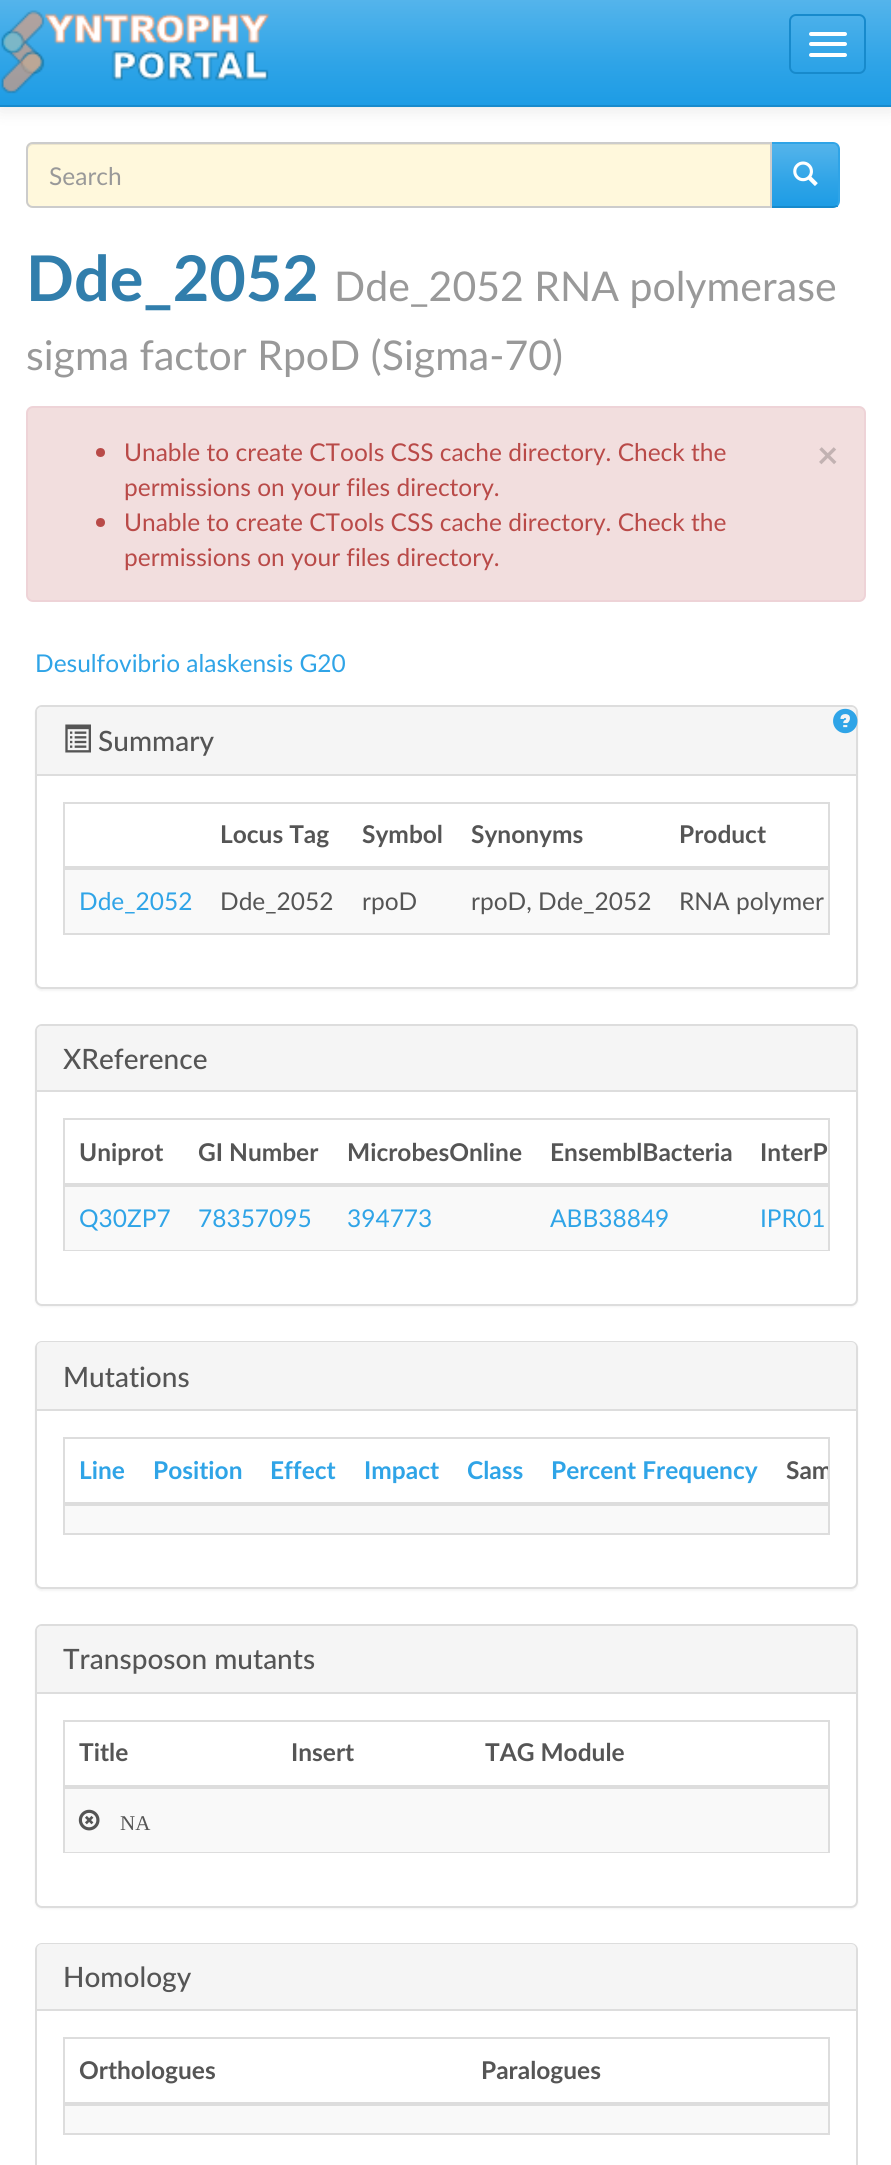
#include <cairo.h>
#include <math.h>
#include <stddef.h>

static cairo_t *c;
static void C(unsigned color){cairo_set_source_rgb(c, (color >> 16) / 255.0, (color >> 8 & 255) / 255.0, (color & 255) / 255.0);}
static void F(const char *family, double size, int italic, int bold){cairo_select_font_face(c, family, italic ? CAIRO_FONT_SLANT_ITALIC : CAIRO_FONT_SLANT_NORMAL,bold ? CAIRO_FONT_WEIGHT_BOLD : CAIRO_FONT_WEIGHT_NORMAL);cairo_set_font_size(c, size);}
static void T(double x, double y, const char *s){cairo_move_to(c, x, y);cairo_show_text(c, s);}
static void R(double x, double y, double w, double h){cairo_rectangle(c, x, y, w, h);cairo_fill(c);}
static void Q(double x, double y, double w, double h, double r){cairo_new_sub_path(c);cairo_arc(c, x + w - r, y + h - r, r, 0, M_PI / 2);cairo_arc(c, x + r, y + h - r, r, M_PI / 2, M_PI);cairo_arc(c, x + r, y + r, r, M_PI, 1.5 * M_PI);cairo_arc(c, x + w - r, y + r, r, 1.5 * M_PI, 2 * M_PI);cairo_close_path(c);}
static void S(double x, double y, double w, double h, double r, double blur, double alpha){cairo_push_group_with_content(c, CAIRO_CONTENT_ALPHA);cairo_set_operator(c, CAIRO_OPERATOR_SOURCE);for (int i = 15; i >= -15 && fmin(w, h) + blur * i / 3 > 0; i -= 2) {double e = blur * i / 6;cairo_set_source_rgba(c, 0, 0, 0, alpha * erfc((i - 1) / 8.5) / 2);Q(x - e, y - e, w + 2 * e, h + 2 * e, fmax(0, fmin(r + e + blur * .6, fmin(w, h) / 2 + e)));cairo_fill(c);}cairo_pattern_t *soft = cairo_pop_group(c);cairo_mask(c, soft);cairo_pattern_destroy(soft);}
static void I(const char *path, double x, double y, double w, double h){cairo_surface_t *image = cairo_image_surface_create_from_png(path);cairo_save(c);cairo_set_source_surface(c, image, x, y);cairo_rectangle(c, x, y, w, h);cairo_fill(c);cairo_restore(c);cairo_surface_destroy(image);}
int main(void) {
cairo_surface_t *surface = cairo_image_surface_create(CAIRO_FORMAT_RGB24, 891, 2165);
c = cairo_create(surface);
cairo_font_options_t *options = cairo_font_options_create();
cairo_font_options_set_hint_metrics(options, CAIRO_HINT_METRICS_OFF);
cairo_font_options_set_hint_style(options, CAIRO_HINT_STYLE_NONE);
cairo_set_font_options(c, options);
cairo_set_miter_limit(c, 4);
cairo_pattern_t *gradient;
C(0xffffff);
cairo_paint(c);
C(0x000000);
S(0,2,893,107,0,9,.1);
gradient = cairo_pattern_create_linear(446,0,446,105);
cairo_pattern_add_color_stop_rgba(gradient,0,0.329,0.706,0.922,1);
cairo_pattern_add_color_stop_rgba(gradient,.6,0.184,0.643,0.906,1);
cairo_pattern_add_color_stop_rgba(gradient,1,0.114,0.612,0.898,1);
cairo_set_source(c,gradient);
cairo_pattern_destroy(gradient);
R(0,0,891,105);
C(0x178acc);
R(0,105,891,2);
I("1.png",1,10,269,84);
Q(790,15,75,58,6);
cairo_stroke(c);
C(0xffffff);
Q(809,32,38,4,2);
cairo_fill(c);
Q(809,42,38,4,2);
cairo_fill(c);
Q(809,53,38,4,2);
cairo_fill(c);
gradient = cairo_pattern_create_linear(805,144,805,207);
cairo_pattern_add_color_stop_rgba(gradient,0,0.329,0.706,0.922,1);
cairo_pattern_add_color_stop_rgba(gradient,.6,0.184,0.643,0.906,1);
cairo_pattern_add_color_stop_rgba(gradient,1,0.114,0.612,0.898,1);
cairo_set_source(c,gradient);
cairo_pattern_destroy(gradient);
R(772,144,66,63);
C(0x2fa4e7);
cairo_new_path(c);
cairo_move_to(c,838,144);
cairo_curve_to(c,837,143,835,142,833,142);
cairo_line_to(c,770,142);
cairo_line_to(c,772,144);
cairo_line_to(c,833,144);
cairo_curve_to(c,834,144,836,144,836,145);
cairo_close_path(c);
cairo_fill(c);
cairo_new_path(c);
cairo_move_to(c,838,144);
cairo_curve_to(c,839,145,840,147,840,149);
cairo_line_to(c,840,201);
cairo_curve_to(c,840,203,839,205,838,206);
cairo_line_to(c,836,205);
cairo_curve_to(c,837,204,838,203,838,201);
cairo_line_to(c,838,149);
cairo_curve_to(c,838,147,837,146,836,145);
cairo_close_path(c);
cairo_fill(c);
C(0x178acc);
cairo_new_path(c);
cairo_move_to(c,838,206);
cairo_curve_to(c,837,207,835,208,833,208);
cairo_line_to(c,770,208);
cairo_line_to(c,772,206);
cairo_line_to(c,833,206);
cairo_curve_to(c,834,206,836,206,836,205);
cairo_close_path(c);
cairo_fill(c);
C(0xfff8dc);
cairo_new_path(c);
cairo_move_to(c,33,142);
cairo_line_to(c,772,142);
cairo_line_to(c,772,208);
cairo_line_to(c,33,208);
cairo_curve_to(c,29,208,26,205,26,201);
cairo_line_to(c,26,149);
cairo_curve_to(c,26,145,29,142,33,142);
cairo_close_path(c);
cairo_fill(c);
C(0xece5cc);
cairo_new_path(c);
cairo_move_to(c,33,145);
cairo_line_to(c,770,145);
cairo_line_to(c,770,144);
cairo_line_to(c,33,144);
cairo_curve_to(c,30,144,28,146,28,149);
cairo_line_to(c,28,150);
cairo_curve_to(c,28,148,30,145,33,145);
cairo_close_path(c);
cairo_fill(c);
cairo_new_path(c);
cairo_move_to(c,33,143);
cairo_line_to(c,771,143);
cairo_line_to(c,771,207);
cairo_line_to(c,33,207);
cairo_curve_to(c,29.5,207,27,204.5,27,201);
cairo_line_to(c,27,149);
cairo_curve_to(c,27,145.5,29.5,143,33,143);
cairo_close_path(c);
C(0xcccccc);
cairo_stroke(c);
F("Lato",24.5,0,0);
C(0x999999);
T(49,185,"Search");
I("2.png",793,161,25,25);
F("Lato",63,0,1);
C(0x317eac);
T(26,301,"Dde_2052");
F("Lato",41,0,0);
C(0x999999);
T(334,301,"Dde_2052 RNA polymerase");
T(26,370,"sigma factor RpoD (Sigma-70)");
C(0xf2dede);
Q(27,407,838,194,6);
cairo_fill_preserve(c);
C(0xeed3d7);
cairo_stroke(c);
C(0xb94a48);
cairo_arc(c,100.5,452.5,4.5,0,2 * M_PI);
cairo_fill(c);
F("Lato",24.5,0,0);
T(124,461,"Unable to create CTools CSS cache directory. Check the");
T(124,496,"permissions on your files directory.");
cairo_new_path(c);
cairo_arc(c,100.5,522.5,4.5,0,2 * M_PI);
cairo_fill(c);
T(124,531,"Unable to create CTools CSS cache directory. Check the");
T(124,566,"permissions on your files directory.");
F("Lato",37,0,1);
C(0xc2b2b2);
T(817,468,"×");
F("Lato",24.5,0,0);
C(0x2fa4e7);
T(35,672,"Desulfovibrio alaskensis G20");
C(0x000000);
S(35,707,823,284,7,1,.05);
C(0xffffff);
Q(36,706,821,282,6);
cairo_fill_preserve(c);
C(0xdddddd);
cairo_stroke(c);
C(0xf5f5f5);
cairo_new_path(c);
cairo_move_to(c,42,707);
cairo_line_to(c,851,707);
cairo_curve_to(c,854,707,856,709,856,712);
cairo_line_to(c,856,775);
cairo_line_to(c,37,775);
cairo_line_to(c,37,712);
cairo_curve_to(c,37,709,39,707,42,707);
cairo_close_path(c);
cairo_fill(c);
I("3.png",833,708,25,26);
C(0xdddddd);
R(37,774,819,2);
I("4.png",65,724,26,29);
F("Lato Medium",28,0,0);
C(0x555555);
T(98,751,"Summary");
cairo_rectangle(c,64,803,765,131);
C(0xdddddd);
cairo_stroke(c);
F("Lato",24.5,0,1);
C(0x555555);
T(220,843,"Locus Tag");
T(362,843,"Symbol");
T(471,843,"Synonyms");
C(0xdddddd);
R(65,866,763,4);
C(0x555555);
T(679,843,"Product");
C(0xf9f9f9);
R(65,870,763,63);
F("Lato",24.5,0,0);
C(0x2fa4e7);
T(79,910,"Dde_2052");
C(0x555555);
T(220,910,"Dde_2052");
T(362,910,"rpoD");
T(471,910,"rpoD, Dde_2052");
T(679,910,"RNA polymer");
C(0x000000);
S(35,1026,823,281,7,1,.05);
C(0xffffff);
Q(36,1025,821,280,6);
cairo_fill_preserve(c);
C(0xdddddd);
cairo_stroke(c);
C(0xf5f5f5);
cairo_new_path(c);
cairo_move_to(c,42,1026);
cairo_line_to(c,851,1026);
cairo_curve_to(c,854,1026,856,1028,856,1031);
cairo_line_to(c,856,1092);
cairo_line_to(c,37,1092);
cairo_line_to(c,37,1031);
cairo_curve_to(c,37,1028,39,1026,42,1026);
cairo_close_path(c);
cairo_fill(c);
C(0xdddddd);
R(37,1090,819,2);
F("Lato Medium",28,0,0);
C(0x555555);
T(63,1069,"XReference");
cairo_rectangle(c,64,1119,765,131);
C(0xdddddd);
cairo_stroke(c);
F("Lato",24.5,0,1);
C(0x555555);
T(79,1161,"Uniprot");
T(198,1161,"GI Number");
T(347,1161,"MicrobesOnline");
T(550,1161,"EnsemblBacteria");
C(0xdddddd);
R(65,1183,763,4);
C(0x555555);
T(760,1161,"InterP");
C(0xf9f9f9);
R(65,1187,763,63);
F("Lato",24.5,0,0);
C(0x2fa4e7);
T(79,1227,"Q30ZP7");
T(198,1227,"78357095");
T(347,1227,"394773");
T(550,1227,"ABB38849");
T(760,1227,"IPR01");
C(0x000000);
S(35,1342,823,249,7,1,.05);
C(0xffffff);
Q(36,1342,821,246,6);
cairo_fill_preserve(c);
C(0xdddddd);
cairo_stroke(c);
C(0xf5f5f5);
cairo_new_path(c);
cairo_move_to(c,42,1342);
cairo_line_to(c,851,1342);
cairo_curve_to(c,854,1342,856,1344,856,1347);
cairo_line_to(c,856,1411);
cairo_line_to(c,37,1411);
cairo_line_to(c,37,1347);
cairo_curve_to(c,37,1344,39,1342,42,1342);
cairo_close_path(c);
cairo_fill(c);
C(0xdddddd);
R(37,1409,819,2);
F("Lato Medium",28,0,0);
C(0x555555);
T(63,1387,"Mutations");
cairo_rectangle(c,64,1438,765,96);
C(0xdddddd);
cairo_stroke(c);
F("Lato",24.5,0,1);
C(0x2fa4e7);
T(79,1479,"Line");
T(153,1479,"Position");
T(270,1479,"Effect");
T(364,1479,"Impact");
T(467,1479,"Class");
T(551,1479,"Percent Frequency");
C(0xdddddd);
R(65,1502,763,4);
cairo_save(c);
cairo_rectangle(c,65,1439,763,94);
cairo_clip(c);
C(0x555555);
T(786,1479,"Sam");
cairo_restore(c);
C(0xf9f9f9);
R(65,1506,763,27);
C(0x000000);
S(35,1626,823,283,7,1,.05);
C(0xffffff);
Q(36,1625,821,282,6);
cairo_fill_preserve(c);
C(0xdddddd);
cairo_stroke(c);
C(0xf5f5f5);
cairo_new_path(c);
cairo_move_to(c,42,1626);
cairo_line_to(c,851,1626);
cairo_curve_to(c,854,1626,856,1628,856,1631);
cairo_line_to(c,856,1694);
cairo_line_to(c,37,1694);
cairo_line_to(c,37,1631);
cairo_curve_to(c,37,1628,39,1626,42,1626);
cairo_close_path(c);
cairo_fill(c);
C(0xdddddd);
R(37,1692,819,2);
F("Lato Medium",28,0,0);
C(0x555555);
T(63,1669,"Transposon mutants");
cairo_rectangle(c,64,1721,765,131);
C(0xdddddd);
cairo_stroke(c);
F("Lato",24.5,0,1);
C(0x555555);
T(79,1761,"Title");
T(291,1761,"Insert");
C(0xdddddd);
R(65,1785,763,4);
C(0x555555);
T(485,1761,"TAG Module");
C(0xf9f9f9);
R(65,1789,763,63);
I("5.png",78,1809,22,22);
F("Liberation Serif",21,0,0);
C(0x555555);
T(120,1830,"NA");
Q(36,1944,821,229,6);
C(0xdddddd);
cairo_stroke(c);
C(0xf5f5f5);
cairo_new_path(c);
cairo_move_to(c,42,1944);
cairo_line_to(c,851,1944);
cairo_curve_to(c,854,1944,856,1946,856,1949);
cairo_line_to(c,856,2011);
cairo_line_to(c,37,2011);
cairo_line_to(c,37,1949);
cairo_curve_to(c,37,1946,39,1944,42,1944);
cairo_close_path(c);
cairo_fill(c);
C(0xdddddd);
R(37,2009,819,2);
F("Lato Medium",28,0,0);
C(0x555555);
T(63,1987,"Homology");
cairo_rectangle(c,64,2038,765,96);
C(0xdddddd);
cairo_stroke(c);
F("Lato",24.5,0,1);
C(0x555555);
T(79,2079,"Orthologues");
C(0xdddddd);
R(65,2102,763,4);
C(0x555555);
T(481,2079,"Paralogues");
C(0xf9f9f9);
R(65,2106,763,27);
cairo_surface_write_to_png(surface, "o.png");
cairo_font_options_destroy(options);
cairo_destroy(c);
cairo_surface_destroy(surface);
return 0;
}
